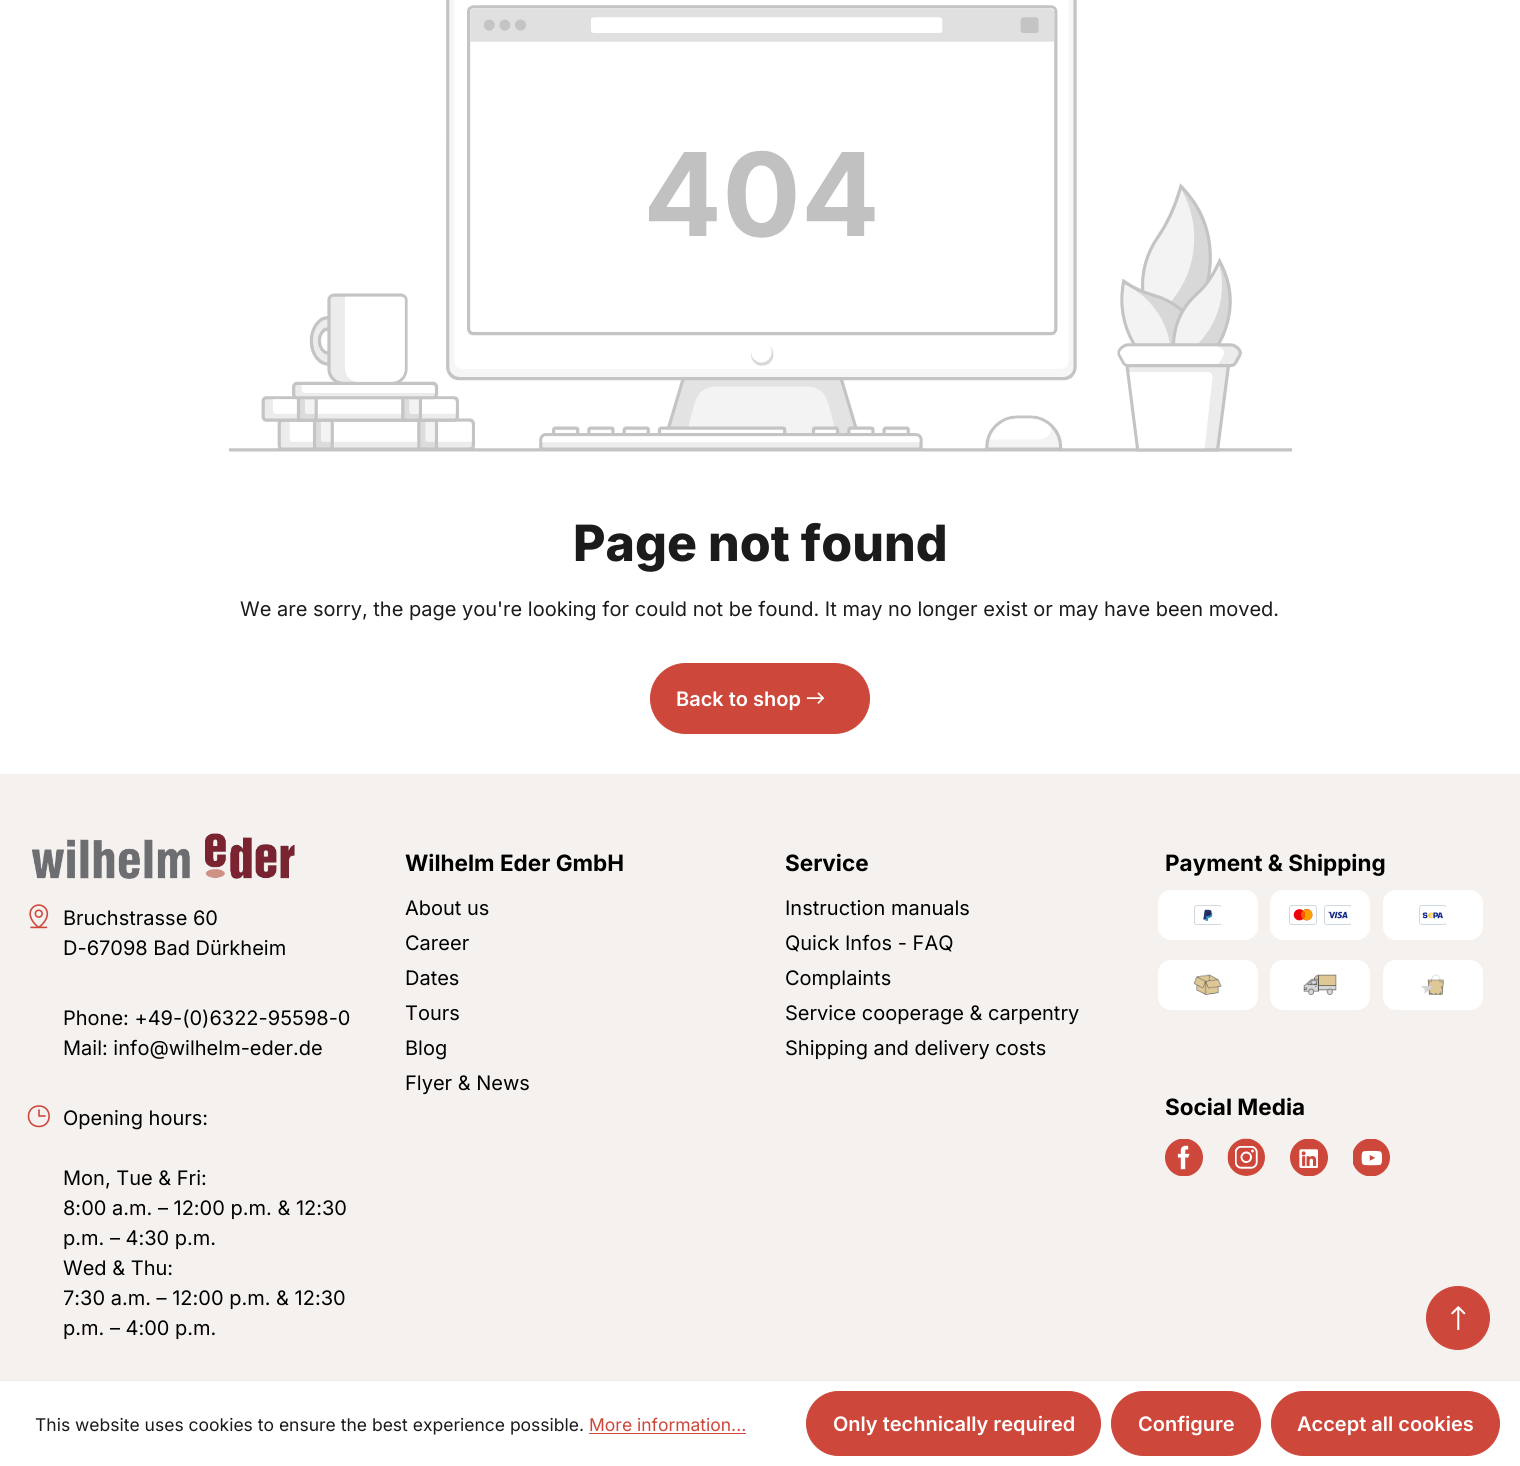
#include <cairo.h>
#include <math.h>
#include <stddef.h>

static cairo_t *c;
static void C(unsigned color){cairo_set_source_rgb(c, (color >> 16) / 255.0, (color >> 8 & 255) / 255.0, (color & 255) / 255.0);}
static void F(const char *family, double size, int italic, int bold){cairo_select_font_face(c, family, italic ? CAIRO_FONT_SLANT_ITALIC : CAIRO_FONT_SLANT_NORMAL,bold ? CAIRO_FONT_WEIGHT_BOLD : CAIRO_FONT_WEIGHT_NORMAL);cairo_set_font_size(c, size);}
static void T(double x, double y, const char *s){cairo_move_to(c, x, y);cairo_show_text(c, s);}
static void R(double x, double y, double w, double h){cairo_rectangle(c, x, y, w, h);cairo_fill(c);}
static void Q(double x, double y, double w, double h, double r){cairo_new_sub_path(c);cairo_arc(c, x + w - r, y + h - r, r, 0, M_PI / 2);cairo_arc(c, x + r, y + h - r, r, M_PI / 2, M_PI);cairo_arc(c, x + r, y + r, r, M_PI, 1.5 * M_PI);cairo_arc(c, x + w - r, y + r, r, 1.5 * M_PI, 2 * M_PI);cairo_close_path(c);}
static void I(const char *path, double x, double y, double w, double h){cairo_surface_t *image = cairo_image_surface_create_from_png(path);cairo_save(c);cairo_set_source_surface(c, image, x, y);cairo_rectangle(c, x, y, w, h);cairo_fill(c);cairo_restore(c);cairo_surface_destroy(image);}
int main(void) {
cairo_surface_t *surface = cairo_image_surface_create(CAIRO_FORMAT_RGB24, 1520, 1466);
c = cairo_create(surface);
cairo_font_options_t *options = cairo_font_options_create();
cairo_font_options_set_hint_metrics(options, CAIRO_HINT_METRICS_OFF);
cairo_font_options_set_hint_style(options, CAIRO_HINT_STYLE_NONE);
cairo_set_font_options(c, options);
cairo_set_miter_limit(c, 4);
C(0xffffff);
cairo_paint(c);
I("1.png",229,0,1064,452);
F("Inter ExtraBold",50,0,0);
C(0x1b1b1b);
T(573,561,"Page not found");
F("Inter",20,0,0);
T(240,616,"We are sorry, the page you're looking for could not be found. It may no longer exist or may have been moved.");
C(0xce473b);
Q(650.5,663.5,219,70,35);
cairo_fill_preserve(c);
cairo_set_line_width(c,1);
cairo_stroke(c);
F("Inter SemiBold",20,0,0);
C(0xffffff);
T(676,706,"Back to shop");
I("2.png",806,692,19,12);
C(0xf5f1ee);
R(0,774,1520,606);
I("3.png",31,833,264,46);
I("4.png",29,904,20,25);
F("Inter",20,0,0);
C(0x000000);
T(63,925,"Bruchstrasse 60");
T(63,955,"D-67098 Bad Dürkheim");
T(63,1025,"Phone: +49-(0)6322-95598-0");
T(63,1055,"Mail: info@wilhelm-eder.de");
cairo_new_path(c);
cairo_move_to(c,39,1126.5);
cairo_curve_to(c,52.5,1126.5,52.5,1106,39,1106);
cairo_curve_to(c,25,1106,25,1126.5,39,1126.5);
cairo_close_path(c);
cairo_move_to(c,39,1110);
cairo_line_to(c,39,1116);
cairo_line_to(c,45,1116);
C(0xce473b);
cairo_set_line_width(c,1.6);
cairo_set_line_cap(c,CAIRO_LINE_CAP_ROUND);
cairo_set_line_join(c,CAIRO_LINE_JOIN_ROUND);
cairo_stroke(c);
C(0x000000);
T(63,1125,"Opening hours:");
T(63,1185,"Mon, Tue & Fri:");
T(63,1215,"8:00 a.m. – 12:00 p.m. & 12:30");
T(63,1245,"p.m. – 4:30 p.m.");
T(63,1275,"Wed & Thu:");
T(63,1305,"7:30 a.m. – 12:00 p.m. & 12:30");
T(63,1335,"p.m. – 4:00 p.m.");
F("Inter",22.5,0,1);
T(405,871,"Wilhelm Eder GmbH");
F("Inter",20,0,0);
T(405,915,"About us");
T(405,950,"Career");
T(405,985,"Dates");
T(405,1020,"Tours");
T(405,1055,"Blog");
T(405,1090,"Flyer & News");
F("Inter",22.5,0,1);
T(785,871,"Service");
F("Inter",20,0,0);
T(785,915,"Instruction manuals");
T(785,950,"Quick Infos - FAQ");
T(785,985,"Complaints");
T(785,1020,"Service cooperage & carpentry");
T(785,1055,"Shipping and delivery costs");
F("Inter",22.5,0,1);
T(1165,871,"Payment & Shipping");
C(0xffffff);
Q(1158,890,100,50,13);
cairo_fill(c);
I("5.png",1194,905,27,20);
Q(1270,890,100,50,13);
cairo_fill(c);
I("6.png",1289,905,62,20);
Q(1383,890,100,50,13);
cairo_fill(c);
I("7.png",1419,905,27,20);
Q(1158,960,100,50,13);
cairo_fill(c);
I("8.png",1193,974,29,21);
Q(1270,960,100,50,13);
cairo_fill(c);
I("9.png",1303,974,34,21);
Q(1383,960,100,50,13);
cairo_fill(c);
I("10.png",1421,974,23,21);
C(0x000000);
T(1165,1115,"Social Media");
I("11.png",1165,1139,38,37);
I("12.png",1227,1138,38,38);
I("13.png",1290,1139,38,37);
I("14.png",1353,1139,37,37);
C(0xce473b);
cairo_arc(c,1458,1318,31.5,0,2 * M_PI);
cairo_fill_preserve(c);
cairo_set_line_width(c,1);
cairo_set_line_cap(c,CAIRO_LINE_CAP_BUTT);
cairo_set_line_join(c,CAIRO_LINE_JOIN_MITER);
cairo_stroke(c);
I("15.png",1451,1306,15,24);
C(0xeeeeee);
R(0,1380,1520,1);
F("Inter",17.5,0,0);
C(0x1b1b1b);
T(35,1431,"This website uses cookies to ensure the best experience possible.");
C(0xce473b);
T(589,1431,"More information...");
R(589,1433,157,1);
Q(806.5,1391.5,294,64,32);
cairo_fill_preserve(c);
cairo_stroke(c);
F("Inter SemiBold",20,0,0);
C(0xffffff);
T(833,1431,"Only technically required");
C(0xce473b);
Q(1111.5,1391.5,149,64,32);
cairo_fill_preserve(c);
cairo_stroke(c);
C(0xffffff);
T(1138,1431,"Configure");
C(0xce473b);
Q(1271.5,1391.5,228,64,32);
cairo_fill_preserve(c);
cairo_stroke(c);
C(0xffffff);
T(1297,1431,"Accept all cookies");
cairo_surface_write_to_png(surface, "o.png");
cairo_font_options_destroy(options);
cairo_destroy(c);
cairo_surface_destroy(surface);
return 0;
}
